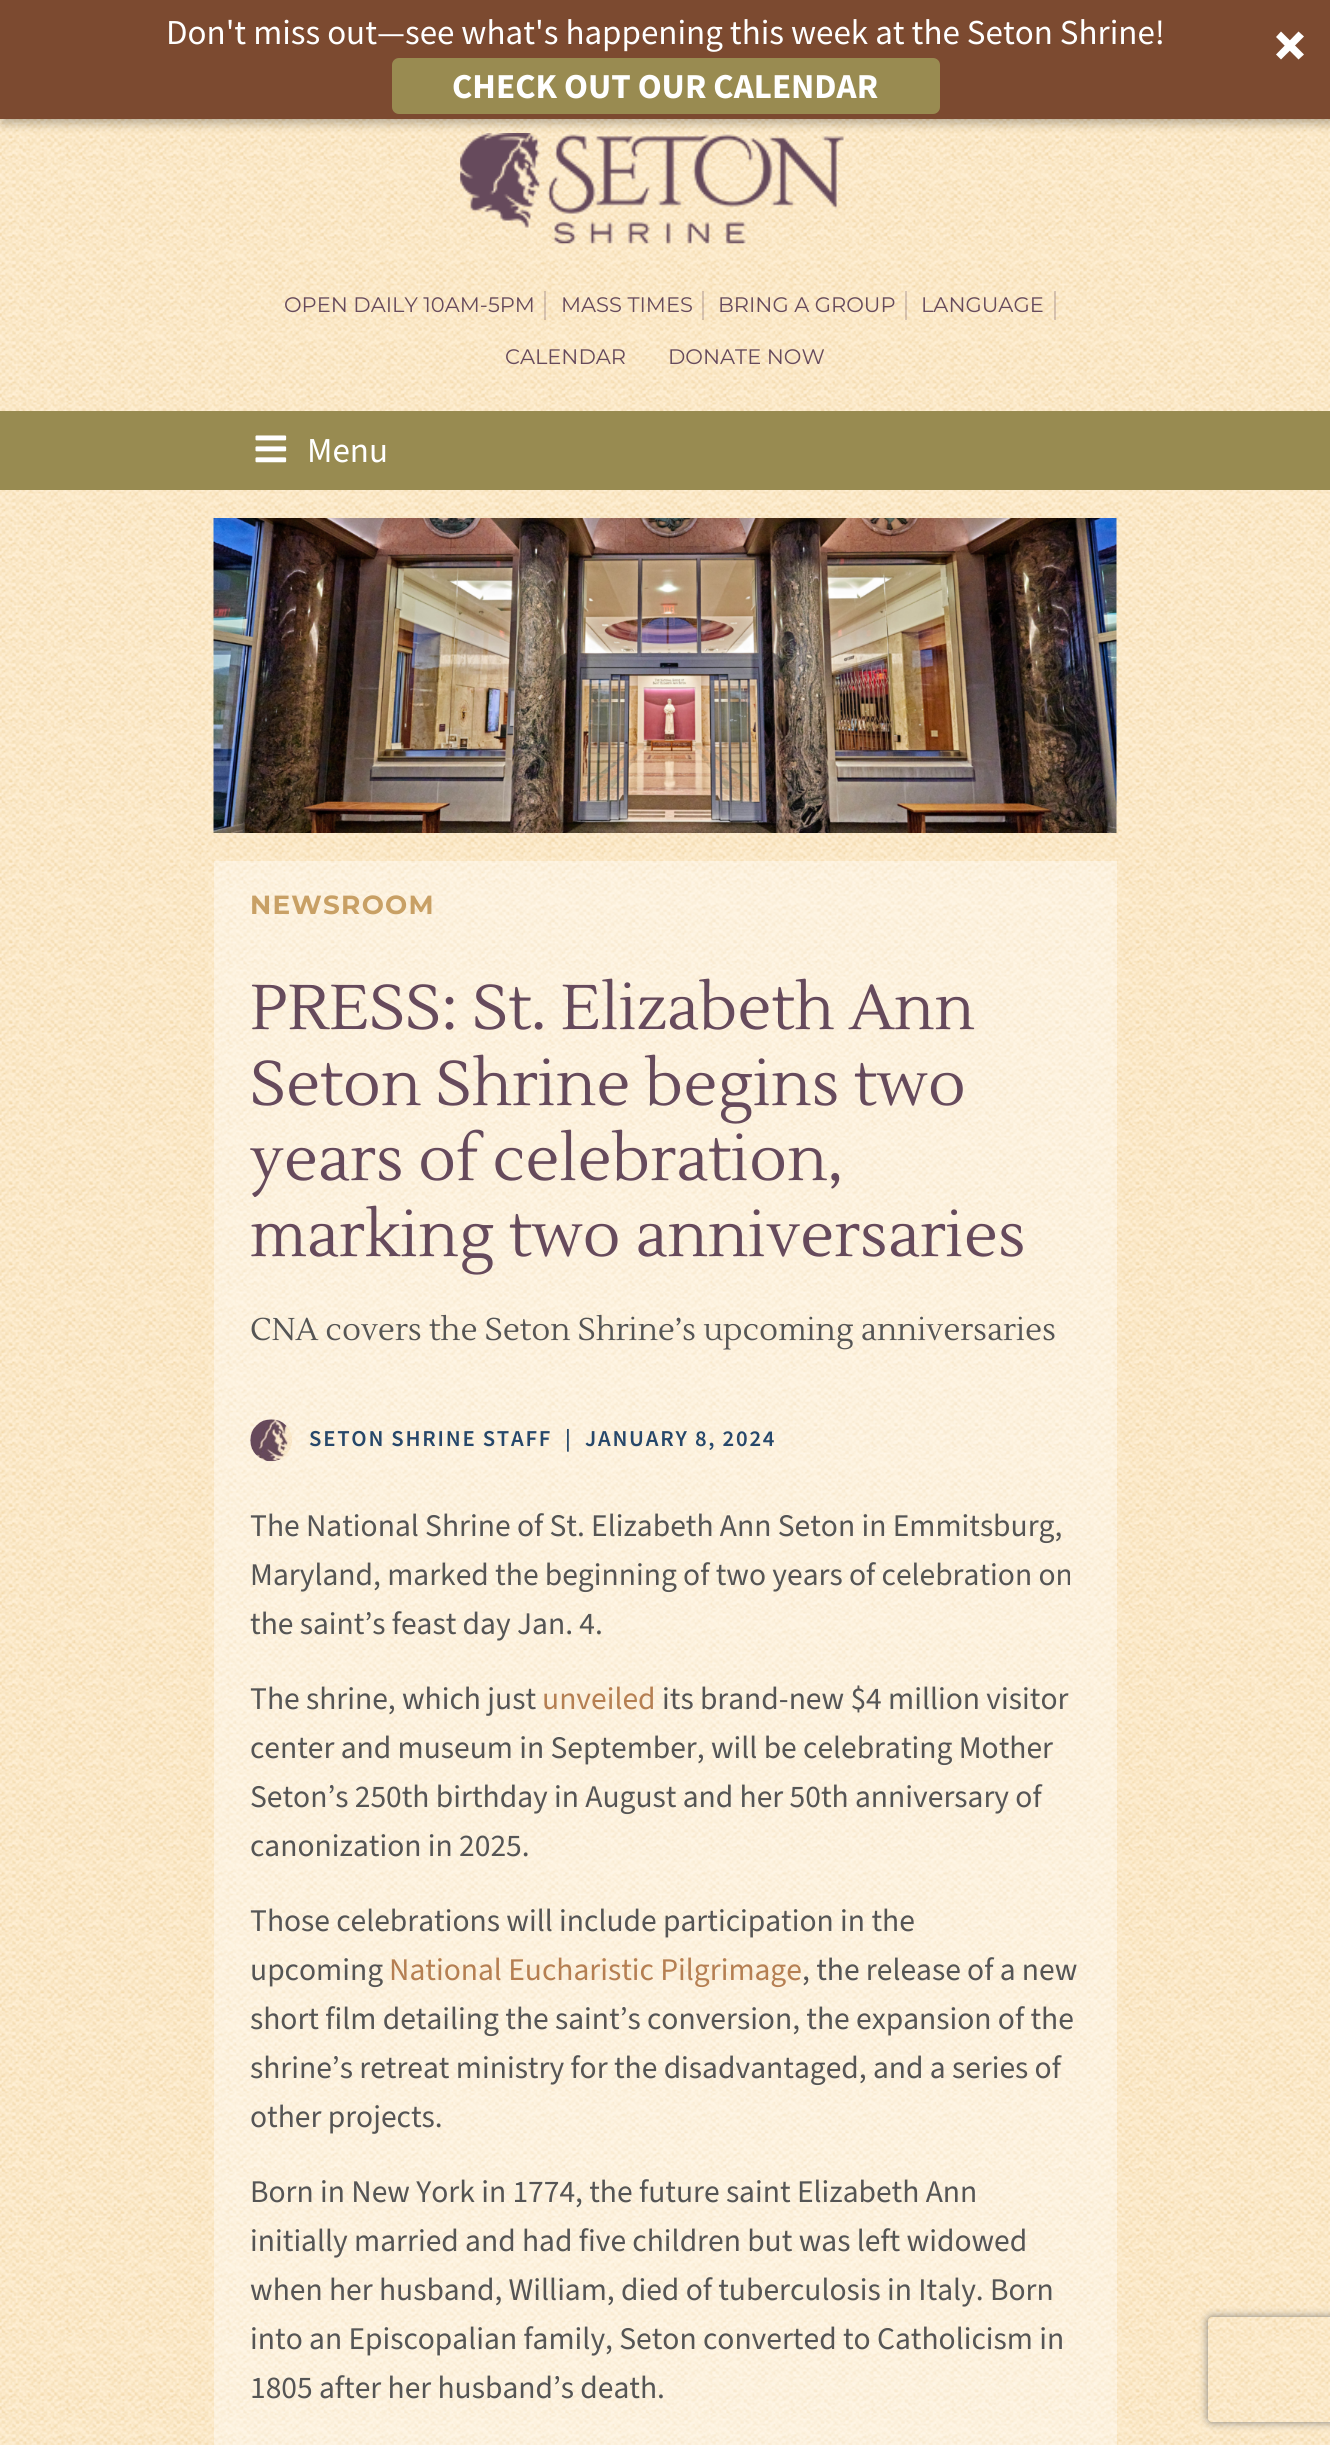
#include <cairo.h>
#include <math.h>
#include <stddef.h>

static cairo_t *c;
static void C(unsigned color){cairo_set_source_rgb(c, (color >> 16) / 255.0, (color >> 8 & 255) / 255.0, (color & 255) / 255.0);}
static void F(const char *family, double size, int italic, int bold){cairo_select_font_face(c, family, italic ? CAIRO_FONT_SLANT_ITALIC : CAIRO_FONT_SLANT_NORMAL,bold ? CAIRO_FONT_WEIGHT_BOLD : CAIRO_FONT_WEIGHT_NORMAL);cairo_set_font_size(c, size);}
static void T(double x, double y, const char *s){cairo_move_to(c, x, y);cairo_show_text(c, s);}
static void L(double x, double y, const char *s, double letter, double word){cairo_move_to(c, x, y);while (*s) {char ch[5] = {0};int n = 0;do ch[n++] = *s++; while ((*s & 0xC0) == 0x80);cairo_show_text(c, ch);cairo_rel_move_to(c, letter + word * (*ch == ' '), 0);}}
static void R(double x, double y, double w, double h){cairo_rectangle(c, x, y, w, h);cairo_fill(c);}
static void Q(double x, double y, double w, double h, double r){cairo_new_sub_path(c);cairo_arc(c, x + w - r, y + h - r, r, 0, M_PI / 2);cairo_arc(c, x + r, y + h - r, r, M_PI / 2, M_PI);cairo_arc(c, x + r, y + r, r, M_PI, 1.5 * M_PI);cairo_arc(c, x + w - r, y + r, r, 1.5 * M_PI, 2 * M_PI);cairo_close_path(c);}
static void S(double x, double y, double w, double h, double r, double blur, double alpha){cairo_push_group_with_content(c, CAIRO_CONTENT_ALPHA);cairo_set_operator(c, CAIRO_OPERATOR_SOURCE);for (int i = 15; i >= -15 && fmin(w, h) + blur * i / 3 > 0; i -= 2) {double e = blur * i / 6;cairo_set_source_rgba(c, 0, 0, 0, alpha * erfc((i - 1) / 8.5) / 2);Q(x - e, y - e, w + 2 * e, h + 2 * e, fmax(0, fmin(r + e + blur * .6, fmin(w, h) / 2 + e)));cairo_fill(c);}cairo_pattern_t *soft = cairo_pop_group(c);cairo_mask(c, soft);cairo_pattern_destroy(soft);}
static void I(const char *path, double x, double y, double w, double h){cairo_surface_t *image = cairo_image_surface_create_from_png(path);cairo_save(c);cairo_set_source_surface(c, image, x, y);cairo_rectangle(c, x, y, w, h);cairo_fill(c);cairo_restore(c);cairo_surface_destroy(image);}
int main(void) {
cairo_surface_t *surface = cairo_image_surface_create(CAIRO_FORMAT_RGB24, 1330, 2445);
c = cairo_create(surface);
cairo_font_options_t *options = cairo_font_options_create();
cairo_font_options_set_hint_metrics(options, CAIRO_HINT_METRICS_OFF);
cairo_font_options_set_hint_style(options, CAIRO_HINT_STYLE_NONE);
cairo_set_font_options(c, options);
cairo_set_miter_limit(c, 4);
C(0xfff0d6);
cairo_paint(c);
I("1.png",0,119,1330,2326);
I("2.png",460,133,384,111);
C(0x000000);
S(2,5,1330,119,0,4.5,.25);
C(0x7c4a30);
R(0,0,1330,119);
F("Source Sans Pro",35,0,0);
C(0xffffff);
T(166,44,"Don't miss out—see what's happening this week at the Seton Shrine!");
cairo_new_path(c);
cairo_move_to(c,1298.5,31.5);
cairo_line_to(c,1304,36.5);
cairo_line_to(c,1281,59.5);
cairo_line_to(c,1276,54.5);
cairo_close_path(c);
cairo_fill(c);
cairo_new_path(c);
cairo_move_to(c,1304,54.5);
cairo_line_to(c,1298.5,59.5);
cairo_line_to(c,1276,37);
cairo_line_to(c,1281,31.5);
cairo_close_path(c);
cairo_fill(c);
C(0x998b51);
Q(392,58,548,56,7);
cairo_fill(c);
F("Source Sans Pro",35,0,1);
C(0xffffff);
T(452,98,"CHECK OUT OUR CALENDAR");
cairo_set_source_rgba(c,0.4,0.29,0.361,0.26);
R(544,291,2,29);
F("Montserrat",21,0,0);
C(0x664a5c);
T(284,312,"OPEN DAILY 10AM-5PM");
cairo_set_source_rgba(c,0.4,0.29,0.361,0.26);
R(702,291,2,29);
C(0x664a5c);
T(561,312,"MASS TIMES");
cairo_set_source_rgba(c,0.4,0.29,0.361,0.26);
R(905,291,2,29);
C(0x664a5c);
T(718,312,"BRING A GROUP");
cairo_set_source_rgba(c,0.4,0.29,0.361,0.26);
R(1054,291,2,29);
C(0x664a5c);
T(921,312,"LANGUAGE");
T(505,364,"CALENDAR");
T(668,364,"DONATE NOW");
C(0x988b51);
R(0,411,1330,79);
I("3.png",255,435,32,28);
F("Source Sans 3",35,0,0);
C(0xffffff);
T(307,462,"Menu");
I("4.png",213,518,904,315);
cairo_set_source_rgba(c,1,1,1,0.4);
R(214,861,903,1584);
F("Montserrat",26.25,0,1);
C(0xc8a065);
L(250,914,"NEWSROOM",1.25,0);
F("Lustria",63,0,0);
C(0x664a5c);
T(250,1029,"PRESS: St. Elizabeth Ann");
T(250,1105,"Seton Shrine begins two");
T(250,1180,"years of celebration,");
T(250,1256,"marking two anniversaries");
F("Lustria",31.5,0,0);
C(0x555555);
T(250,1340,"CNA covers the Seton Shrine’s upcoming anniversaries");
I("5.png",250,1419,42,43);
F("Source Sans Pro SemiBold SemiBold",22.75,0,0);
C(0x26476a);
L(309,1446,"SETON SHRINE STAFF",1.75,0);
L(565,1446,"|",1.75,0);
L(585,1446,"JANUARY 8, 2024",1.75,0);
F("Source Sans 3",31.5,0,0);
C(0x555555);
T(250,1536,"The National Shrine of St. Elizabeth Ann Seton in Emmitsburg,");
T(250,1585,"Maryland, marked the beginning of two years of celebration on");
T(250,1634,"the saint’s feast day Jan. 4.");
T(250,1709,"The shrine, which just");
C(0xb57f52);
T(542,1709,"unveiled");
C(0x555555);
T(662,1709,"its brand-new $4 million visitor");
T(250,1758,"center and museum in September, will be celebrating Mother");
T(250,1807,"Seton’s 250th birthday in August and her 50th anniversary of");
T(250,1856,"canonization in 2025.");
T(250,1931,"Those celebrations will include participation in the");
T(250,1980,"upcoming");
C(0xb57f52);
T(389,1980,"National Eucharistic Pilgrimage");
C(0x555555);
T(802,1980,", the release of a new");
T(250,2029,"short film detailing the saint’s conversion, the expansion of the");
T(250,2078,"shrine’s retreat ministry for the disadvantaged, and a series of");
T(250,2127,"other projects.");
T(250,2202,"Born in New York in 1774, the future saint Elizabeth Ann");
T(250,2251,"initially married and had five children but was left widowed");
T(250,2300,"when her husband, William, died of tuberculosis in Italy. Born");
T(250,2349,"into an Episcopalian family, Seton converted to Catholicism in");
T(250,2398,"1805 after her husband’s death.");
cairo_save(c);
cairo_set_fill_rule(c,CAIRO_FILL_RULE_EVEN_ODD);
cairo_new_path(c);
cairo_move_to(c,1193,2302);
cairo_line_to(c,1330,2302);
cairo_line_to(c,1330,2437);
cairo_line_to(c,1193,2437);
cairo_close_path(c);
cairo_move_to(c,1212,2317);
cairo_line_to(c,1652,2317);
cairo_curve_to(c,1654,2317,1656,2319,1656,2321);
cairo_line_to(c,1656,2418);
cairo_curve_to(c,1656,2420,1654,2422,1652,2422);
cairo_line_to(c,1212,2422);
cairo_curve_to(c,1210,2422,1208,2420,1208,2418);
cairo_line_to(c,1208,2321);
cairo_curve_to(c,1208,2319,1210,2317,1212,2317);
cairo_close_path(c);
cairo_clip(c);
C(0x808080);
S(1208,2317,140,105,4,4.5,1);
cairo_restore(c);
cairo_surface_write_to_png(surface, "o.png");
cairo_font_options_destroy(options);
cairo_destroy(c);
cairo_surface_destroy(surface);
return 0;
}
